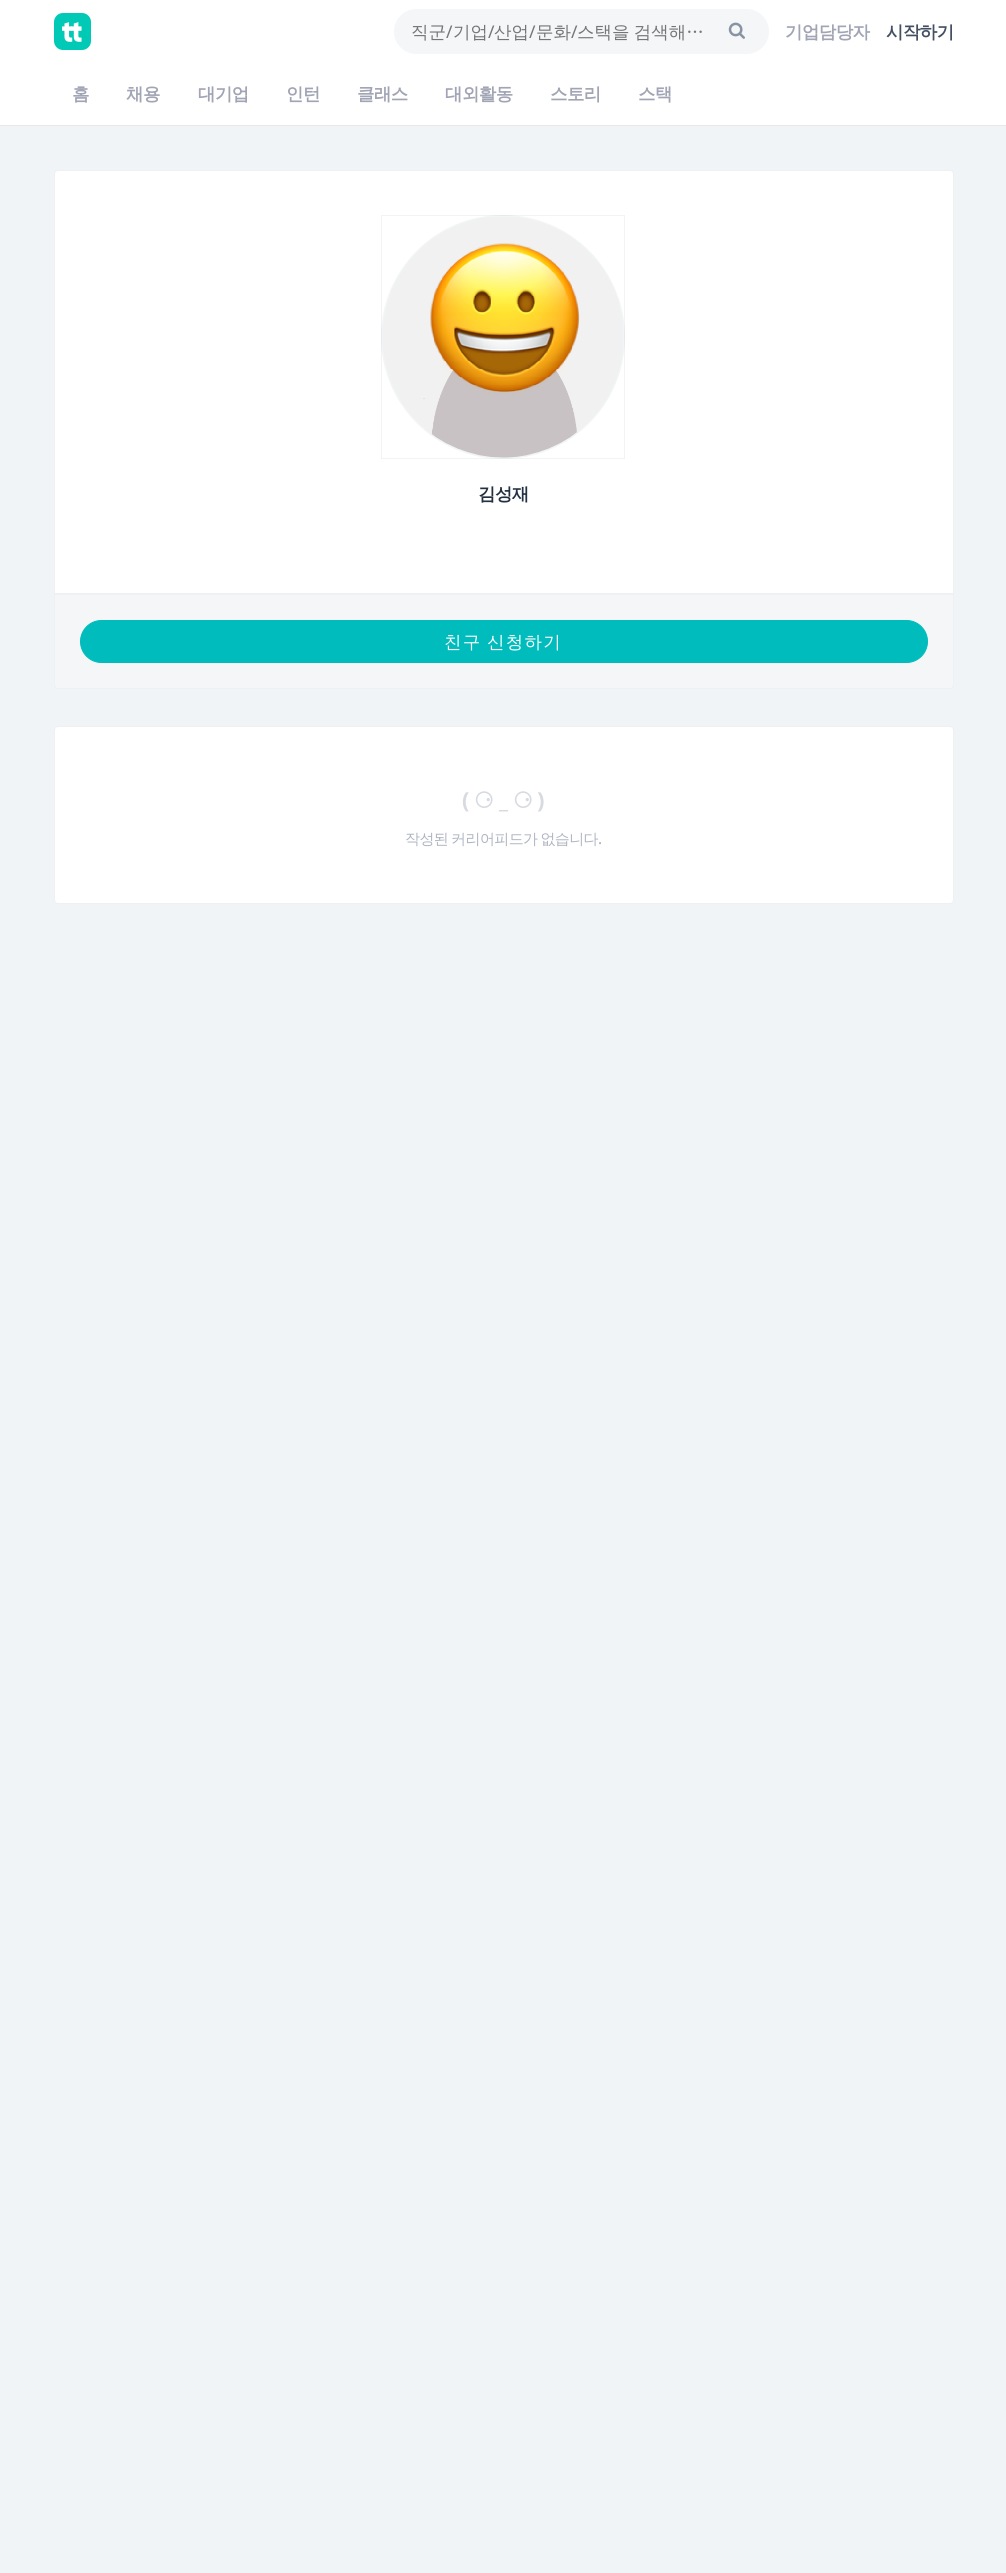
#include <cairo.h>
#include <math.h>
#include <stddef.h>

static cairo_t *c;
static void C(unsigned color){cairo_set_source_rgb(c, (color >> 16) / 255.0, (color >> 8 & 255) / 255.0, (color & 255) / 255.0);}
static void F(const char *family, double size, int italic, int bold){cairo_select_font_face(c, family, italic ? CAIRO_FONT_SLANT_ITALIC : CAIRO_FONT_SLANT_NORMAL,bold ? CAIRO_FONT_WEIGHT_BOLD : CAIRO_FONT_WEIGHT_NORMAL);cairo_set_font_size(c, size);}
static void T(double x, double y, const char *s){cairo_move_to(c, x, y);cairo_show_text(c, s);}
static void L(double x, double y, const char *s, double letter, double word){cairo_move_to(c, x, y);while (*s) {char ch[5] = {0};int n = 0;do ch[n++] = *s++; while ((*s & 0xC0) == 0x80);cairo_show_text(c, ch);cairo_rel_move_to(c, letter + word * (*ch == ' '), 0);}}
static void R(double x, double y, double w, double h){cairo_rectangle(c, x, y, w, h);cairo_fill(c);}
static void Q(double x, double y, double w, double h, double r){cairo_new_sub_path(c);cairo_arc(c, x + w - r, y + h - r, r, 0, M_PI / 2);cairo_arc(c, x + r, y + h - r, r, M_PI / 2, M_PI);cairo_arc(c, x + r, y + r, r, M_PI, 1.5 * M_PI);cairo_arc(c, x + w - r, y + r, r, 1.5 * M_PI, 2 * M_PI);cairo_close_path(c);}
static void I(const char *path, double x, double y, double w, double h){cairo_surface_t *image = cairo_image_surface_create_from_png(path);cairo_save(c);cairo_set_source_surface(c, image, x, y);cairo_rectangle(c, x, y, w, h);cairo_fill(c);cairo_restore(c);cairo_surface_destroy(image);}
int main(void) {
cairo_surface_t *surface = cairo_image_surface_create(CAIRO_FORMAT_RGB24, 1006, 2573);
c = cairo_create(surface);
cairo_font_options_t *options = cairo_font_options_create();
cairo_font_options_set_hint_metrics(options, CAIRO_HINT_METRICS_OFF);
cairo_font_options_set_hint_style(options, CAIRO_HINT_STYLE_NONE);
cairo_set_font_options(c, options);
cairo_set_miter_limit(c, 4);
C(0xf0f4f7);
cairo_paint(c);
C(0xffffff);
R(0,0,1006,125);
C(0xe7e7e7);
R(0,125,1006,1);
I("1.png",54,13,37,37);
C(0xf4f6f7);
Q(394,9,375,45,22.5);
cairo_fill(c);
F("WenQuanYi Zen Hei Medium",17.5,0,0);
C(0x757575);
T(411,38,"직군");
F("Noto Sans",17.5,0,0);
T(446,38,"/");
F("WenQuanYi Zen Hei Medium",17.5,0,0);
T(453,38,"기업");
F("Noto Sans",17.5,0,0);
T(488,38,"/");
F("WenQuanYi Zen Hei Medium",17.5,0,0);
T(494,38,"산업");
F("Noto Sans",17.5,0,0);
T(529,38,"/");
F("WenQuanYi Zen Hei Medium",17.5,0,0);
T(536,38,"문화");
F("Noto Sans",17.5,0,0);
T(571,38,"/");
F("WenQuanYi Zen Hei Medium",17.5,0,0);
L(577,38,"스택을 검색해…",0,-1);
I("2.png",728,22,17,17);
F("WenQuanYi Zen Hei",17.5,0,1);
C(0xa1a4b4);
L(785,38,"기업담당자",-.6,0);
C(0x435061);
L(886,38,"시작하기",-.6,0);
C(0xa1a4b4);
L(72,100,"홈",-.6,0);
L(126,100,"채용",-.6,0);
L(198,100,"대기업",-.6,0);
L(286,100,"인턴",-.6,0);
L(357,100,"클래스",-.6,0);
L(445,100,"대외활동",-.6,0);
L(550,100,"스토리",-.6,0);
L(638,100,"스택",-.6,0);
C(0xffffff);
cairo_new_path(c);
cairo_move_to(c,58,170.5);
cairo_line_to(c,950,170.5);
cairo_curve_to(c,952,170.5,953.5,172,953.5,174);
cairo_line_to(c,953.5,593.5);
cairo_line_to(c,54.5,593.5);
cairo_line_to(c,54.5,174);
cairo_curve_to(c,54.5,172,56,170.5,58,170.5);
cairo_close_path(c);
cairo_fill_preserve(c);
C(0xeef0f2);
cairo_set_line_width(c,1);
cairo_stroke(c);
C(0xf1f5f6);
cairo_arc(c,503,337,122,0,2 * M_PI);
cairo_fill(c);
cairo_rectangle(c,381.5,215.5,243,243);
cairo_set_source_rgba(c,0,0,0,0.05);
cairo_stroke(c);
I("3.png",383,217,240,241);
C(0x223141);
L(478,500,"김성재",-.6,0);
C(0xf4f6f7);
cairo_new_path(c);
cairo_move_to(c,54.5,594.5);
cairo_line_to(c,953.5,594.5);
cairo_line_to(c,953.5,685);
cairo_curve_to(c,953.5,687,952,688.5,950,688.5);
cairo_line_to(c,58,688.5);
cairo_curve_to(c,56,688.5,54.5,687,54.5,685);
cairo_close_path(c);
cairo_fill_preserve(c);
C(0xeef0f2);
cairo_stroke(c);
C(0x00bcbd);
Q(80.5,620.5,847,42,21);
cairo_fill_preserve(c);
cairo_stroke(c);
F("WenQuanYi Zen Hei Medium",17.5,0,0);
C(0xffffff);
L(444,648,"친구 신청하기",1.25,-1);
Q(54.5,726.5,899,177,3.5);
cairo_fill_preserve(c);
C(0xeef0f2);
cairo_stroke(c);
F("Noto Sans",22,0,1);
C(0xd7dae0);
L(462,808,"(",-.6,0);
F("DejaVu Sans",22,0,1);
L(474,808,"⚆",-.6,0);
F("Noto Sans",22,0,1);
L(499,808,"_",-.6,0);
F("DejaVu Sans",22,0,1);
L(513,808,"⚆",-.6,0);
F("Noto Sans",22,0,1);
L(537,808,")",-.6,0);
F("WenQuanYi Zen Hei Medium",15,0,0);
C(0xafb5c1);
L(405,844,"작성된 커리어피드가 없습니다",-.6,-1);
F("Noto Sans Medium",15,0,0);
L(598,844,".",-.6,0);
cairo_surface_write_to_png(surface, "o.png");
cairo_font_options_destroy(options);
cairo_destroy(c);
cairo_surface_destroy(surface);
return 0;
}
